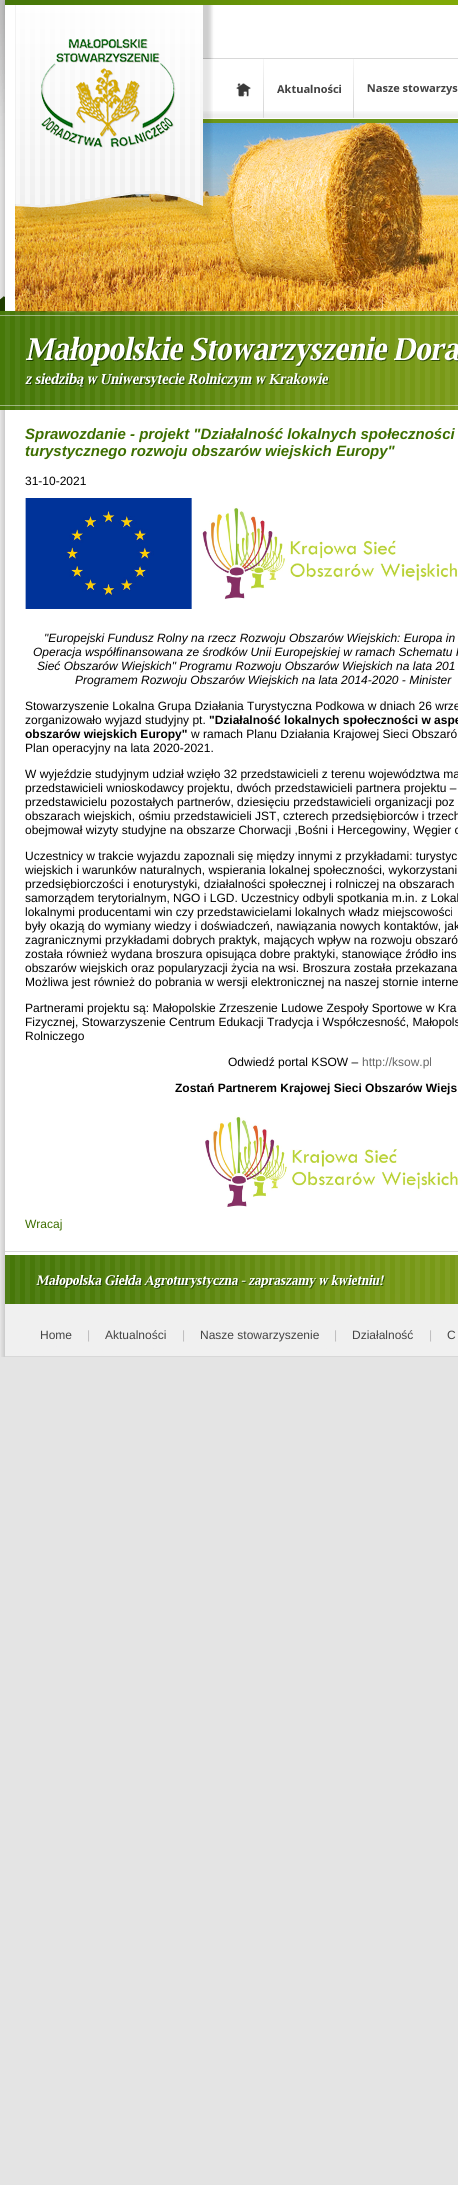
#include <cairo.h>
#include <math.h>
#include <stddef.h>

static cairo_t *c;
static void C(unsigned color){cairo_set_source_rgb(c, (color >> 16) / 255.0, (color >> 8 & 255) / 255.0, (color & 255) / 255.0);}
static void F(const char *family, double size, int italic, int bold){cairo_select_font_face(c, family, italic ? CAIRO_FONT_SLANT_ITALIC : CAIRO_FONT_SLANT_NORMAL,bold ? CAIRO_FONT_WEIGHT_BOLD : CAIRO_FONT_WEIGHT_NORMAL);cairo_set_font_size(c, size);}
static void T(double x, double y, const char *s){cairo_move_to(c, x, y);cairo_show_text(c, s);}
static void I(const char *path, double x, double y, double w, double h){cairo_surface_t *image = cairo_image_surface_create_from_png(path);cairo_save(c);cairo_set_source_surface(c, image, x, y);cairo_rectangle(c, x, y, w, h);cairo_fill(c);cairo_restore(c);cairo_surface_destroy(image);}
int main(void) {
cairo_surface_t *surface = cairo_image_surface_create(CAIRO_FORMAT_RGB24, 458, 2185);
c = cairo_create(surface);
cairo_font_options_t *options = cairo_font_options_create();
cairo_font_options_set_hint_metrics(options, CAIRO_HINT_METRICS_OFF);
cairo_font_options_set_hint_style(options, CAIRO_HINT_STYLE_NONE);
cairo_set_font_options(c, options);
cairo_set_miter_limit(c, 4);
C(0xe4e4e4);
cairo_paint(c);
I("1.png",0,0,2,5);
I("2.png",2,0,456,5);
I("3.png",0,5,458,53);
I("5.png",0,58,458,61);
I("10.png",0,119,458,192);
I("4.png",15,5,198,218);
I("6.png",236,83,15,14);
I("7.png",263,59,1,59);
I("8.png",277,84,64,9);
I("7.png",353,59,1,59);
I("9.png",367,84,91,11);
I("11.png",0,296,458,114);
I("12.png",1,410,457,841);
F("Liberation Sans",15,1,1);
C(0x3d6e00);
T(25,439,"Sprawozdanie - projekt \"Działalność lokalnych społeczności");
T(25,456,"turystycznego rozwoju obszarów wiejskich Europy\"");
F("Liberation Sans",12,0,0);
C(0x000000);
T(25,485,"31-10-2021");
I("13.png",25,498,433,111);
F("Liberation Sans",12,1,0);
T(44,642,"\"Europejski Fundusz Rolny na rzecz Rozwoju Obszarów Wiejskich: Europa in");
T(33,656,"Operacja współfinansowana ze środków Unii Europejskiej w ramach Schematu I");
T(37,670,"Sieć Obszarów Wiejskich\" Programu Rozwoju Obszarów Wiejskich na lata 201");
T(75,684,"Programem Rozwoju Obszarów Wiejskich na lata 2014-2020 - Minister");
F("Liberation Sans",12,0,0);
T(25,710,"Stowarzyszenie Lokalna Grupa Działania Turystyczna Podkowa w dniach 26 wrze");
T(25,724,"zorganizowało wyjazd studyjny pt.");
F("Liberation Sans",12,0,1);
T(209,724,"\"Działalność lokalnych społeczności w aspe");
T(25,738,"obszarów wiejskich Europy\"");
F("Liberation Sans",12,0,0);
T(191,738,"w ramach Planu Działania Krajowej Sieci Obszaró");
T(25,752,"Plan operacyjny na lata 2020-2021.");
T(25,778,"W wyjeździe studyjnym udział wzięło 32 przedstawicieli z terenu województwa ma");
T(25,792,"przedstawicieli wnioskodawcy projektu, dwóch przedstawicieli partnera projektu –");
T(25,806,"przedstawicielu pozostałych partnerów, dziesięciu przedstawicieli organizacji poz");
T(25,820,"obszarach wiejskich, ośmiu przedstawicieli JST, czterech przedsiębiorców i trzech");
T(25,834,"obejmował wizyty studyjne na obszarze Chorwacji ,Bośni i Hercegowiny, Węgier o");
T(25,860,"Uczestnicy w trakcie wyjazdu zapoznali się między innymi z przykładami: turystyc");
T(25,874,"wiejskich i warunków naturalnych, wspierania lokalnej społeczności, wykorzystani");
T(25,888,"przedsiębiorczości i enoturystyki, działalności społecznej i rolniczej na obszarach");
T(25,902,"samorządem terytorialnym, NGO i LGD. Uczestnicy odbyli spotkania m.in. z Lokal");
T(25,916,"lokalnymi producentami win czy przedstawicielami lokalnych władz miejscowości");
T(25,930,"były okazją do wymiany wiedzy i doświadczeń, nawiązania nowych kontaktów, jak");
T(25,944,"zagranicznymi przykładami dobrych praktyk, mających wpływ na rozwoju obszaró");
T(25,958,"została również wydana broszura opisująca dobre praktyki, stanowiące źródło ins");
T(25,972,"obszarów wiejskich oraz popularyzacji życia na wsi. Broszura została przekazana");
T(25,986,"Możliwa jest również do pobrania w wersji elektronicznej na naszej stornie interne");
T(25,1012,"Partnerami projektu są: Małopolskie Zrzeszenie Ludowe Zespoły Sportowe w Kra");
T(25,1026,"Fizycznej, Stowarzyszenie Centrum Edukacji Tradycja i Współczesność, Małopols");
T(25,1040,"Rolniczego");
T(228,1066,"Odwiedź portal KSOW –");
C(0x666666);
T(362,1066,"http://ksow.pl");
F("Liberation Sans",12,0,1);
C(0x000000);
T(175,1092,"Zostań Partnerem Krajowej Sieci Obszarów Wiejs");
I("14.png",205,1116,253,91);
F("Liberation Sans",12,0,0);
C(0x3d6e00);
T(25,1228,"Wracaj");
I("15.png",1,1251,457,53);
I("16.png",1,1304,457,53);
C(0x444444);
T(40,1339,"Home");
C(0xbcbbbc);
T(87,1339,"|");
C(0x444444);
T(105,1339,"Aktualności");
C(0xbcbbbc);
T(182,1339,"|");
C(0x444444);
T(200,1339,"Nasze stowarzyszenie");
C(0xbcbbbc);
T(334,1339,"|");
C(0x444444);
T(352,1339,"Działalność");
C(0xbcbbbc);
T(429,1339,"|");
C(0x444444);
T(447,1339,"C");
cairo_surface_write_to_png(surface, "o.png");
cairo_font_options_destroy(options);
cairo_destroy(c);
cairo_surface_destroy(surface);
return 0;
}
